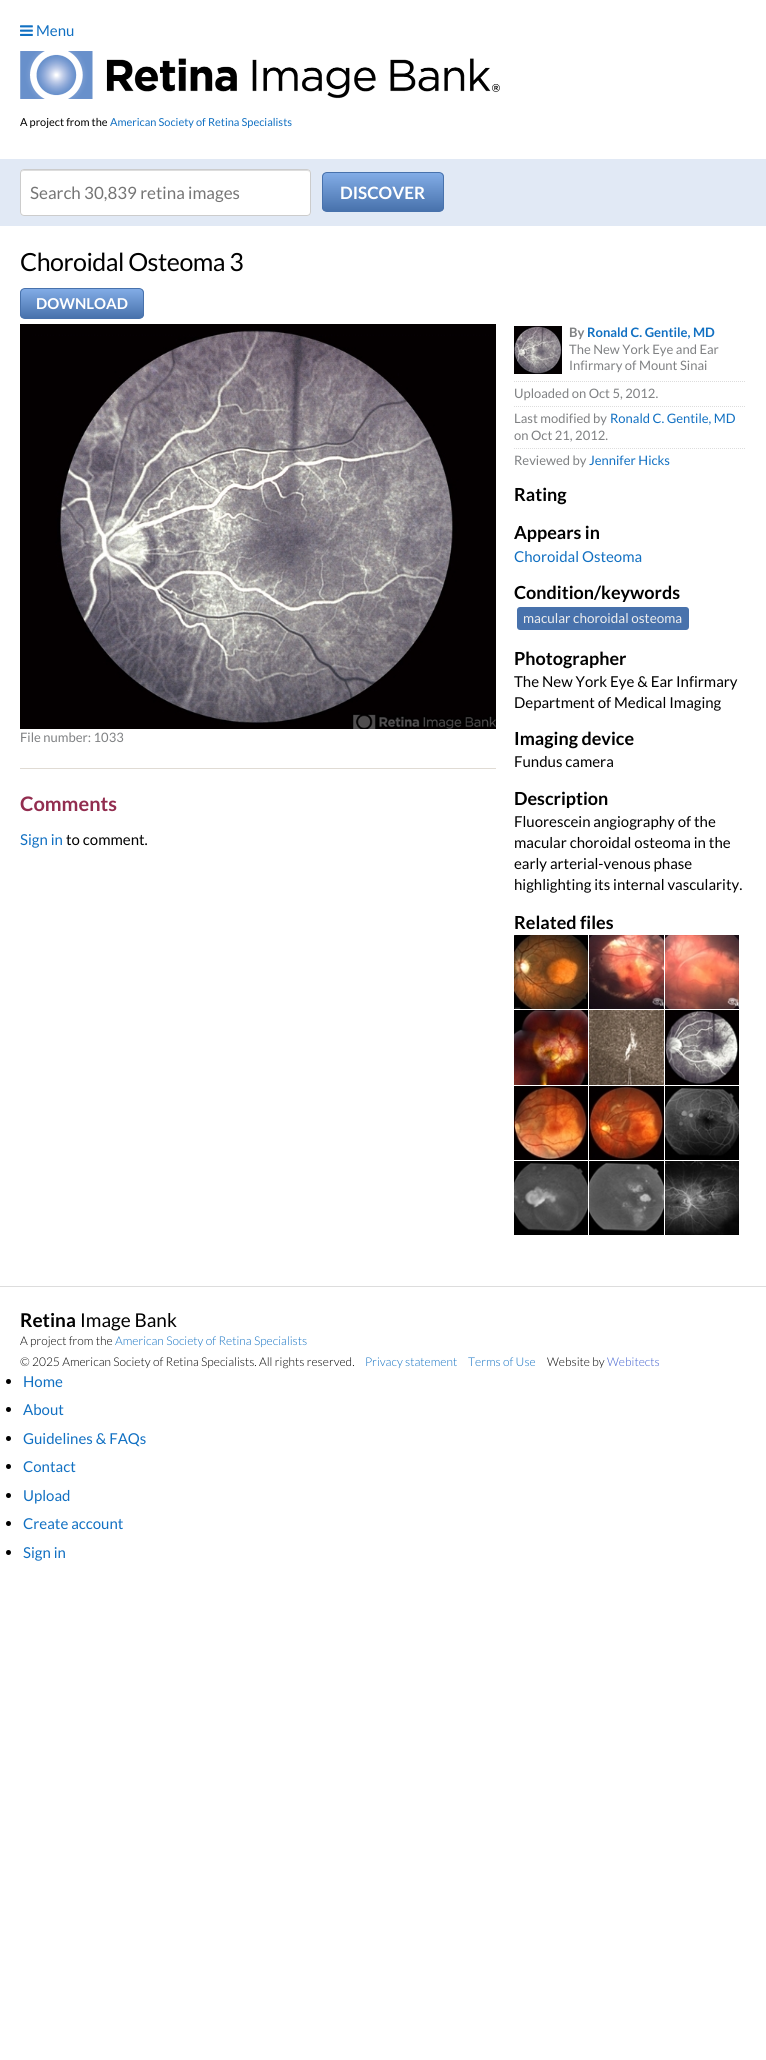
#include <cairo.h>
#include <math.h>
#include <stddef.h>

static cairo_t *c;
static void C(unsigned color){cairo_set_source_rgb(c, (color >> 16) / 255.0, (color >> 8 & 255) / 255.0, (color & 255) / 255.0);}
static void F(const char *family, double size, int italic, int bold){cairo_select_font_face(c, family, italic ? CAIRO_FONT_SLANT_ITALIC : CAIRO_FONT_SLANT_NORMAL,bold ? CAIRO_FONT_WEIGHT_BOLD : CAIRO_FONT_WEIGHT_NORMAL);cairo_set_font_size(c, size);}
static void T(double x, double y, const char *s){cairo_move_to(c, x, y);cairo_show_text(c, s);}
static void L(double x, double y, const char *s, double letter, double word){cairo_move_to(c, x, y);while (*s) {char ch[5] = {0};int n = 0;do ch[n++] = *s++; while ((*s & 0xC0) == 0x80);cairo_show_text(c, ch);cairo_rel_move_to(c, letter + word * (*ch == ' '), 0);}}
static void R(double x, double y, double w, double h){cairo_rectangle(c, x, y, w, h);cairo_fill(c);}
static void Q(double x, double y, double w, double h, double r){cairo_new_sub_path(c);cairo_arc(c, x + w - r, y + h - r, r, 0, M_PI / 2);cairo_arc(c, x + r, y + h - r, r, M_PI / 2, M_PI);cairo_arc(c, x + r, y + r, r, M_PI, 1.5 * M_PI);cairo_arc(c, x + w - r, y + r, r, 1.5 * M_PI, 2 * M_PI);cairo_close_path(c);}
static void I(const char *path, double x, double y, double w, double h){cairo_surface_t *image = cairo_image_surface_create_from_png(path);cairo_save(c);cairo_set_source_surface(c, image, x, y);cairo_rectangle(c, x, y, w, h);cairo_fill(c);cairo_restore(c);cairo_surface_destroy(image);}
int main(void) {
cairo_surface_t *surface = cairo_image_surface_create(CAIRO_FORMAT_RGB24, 766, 2060);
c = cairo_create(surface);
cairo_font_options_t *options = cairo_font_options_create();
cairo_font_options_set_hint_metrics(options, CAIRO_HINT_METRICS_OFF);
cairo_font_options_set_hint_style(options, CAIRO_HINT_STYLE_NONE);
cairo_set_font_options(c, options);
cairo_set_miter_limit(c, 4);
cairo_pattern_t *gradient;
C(0xffffff);
cairo_paint(c);
I("1.png",20,25,13,11);
F("Lato",15,0,0);
C(0x1170c2);
T(36,36,"Menu");
I("2.png",20,51,480,48);
F("Lato",11,0,0);
C(0x000000);
T(20,126,"A project from the");
C(0x1170c2);
T(110,126,"American Society of Retina Specialists");
C(0xe1e9f5);
R(0,159,766,67);
C(0xffffff);
Q(20,169,291,47,4);
cairo_fill(c);
C(0xdddddd);
cairo_new_path(c);
cairo_move_to(c,24,171);
cairo_line_to(c,307,171);
cairo_curve_to(c,309,171,310,172,310,174);
cairo_curve_to(c,310,172,309,170,307,170);
cairo_line_to(c,24,170);
cairo_curve_to(c,22,170,21,172,21,174);
cairo_curve_to(c,21,172,22,171,24,171);
cairo_close_path(c);
cairo_fill(c);
Q(20.5,169.5,290,46,3.5);
C(0xcccccc);
cairo_set_line_width(c,1);
cairo_stroke(c);
F("Lato",17,0,0);
C(0x757575);
T(30,199,"Search 30,839 retina images");
cairo_save(c);
Q(322,172,122,40,5);
cairo_clip(c);
gradient = cairo_pattern_create_linear(383,173,383,211);
cairo_pattern_add_color_stop_rgba(gradient,0,0.51,0.675,0.902,1);
cairo_pattern_add_color_stop_rgba(gradient,1,0.282,0.447,0.675,1);
cairo_set_source(c,gradient);
cairo_pattern_destroy(gradient);
R(322,173,122,38);
cairo_restore(c);
Q(322.5,172.5,121,39,4.5);
C(0x4872ac);
cairo_stroke(c);
F("Lato",17,0,1);
C(0xffffff);
T(340,199,"DISCOVER");
F("Lato",25,0,0);
C(0x000000);
L(20,271,"Choroidal Osteoma 3",-.5,0);
cairo_save(c);
Q(20,288,124,31,5);
cairo_clip(c);
gradient = cairo_pattern_create_linear(82,289,82,318);
cairo_pattern_add_color_stop_rgba(gradient,0,0.51,0.675,0.902,1);
cairo_pattern_add_color_stop_rgba(gradient,1,0.282,0.447,0.675,1);
cairo_set_source(c,gradient);
cairo_pattern_destroy(gradient);
R(20,289,124,29);
cairo_restore(c);
Q(20.5,288.5,123,30,4.5);
C(0x4872ac);
cairo_stroke(c);
F("Lato",15,0,1);
C(0xffffff);
T(36,309,"DOWNLOAD");
I("3.png",20,324,476,405);
F("Lato",13,0,0);
C(0x7f8183);
T(20,742,"File number: 1033");
C(0xe0dbd4);
R(20,768,476,1);
F("Lato",20,0,1);
C(0x922d4f);
T(20,811,"Comments");
F("Lato",15,0,0);
C(0x1170c2);
T(20,845,"Sign in");
C(0x000000);
T(66,845,"to comment.");
cairo_new_path(c);
cairo_move_to(c,514,381.5);
cairo_line_to(c,746,381.5);
C(0xdddddd);
cairo_set_dash(c,(double[]){1,1},2,0);
cairo_stroke(c);
I("4.png",514,326,48,48);
F("Lato",13,0,1);
C(0x7f8183);
T(569,337,"By");
C(0x1170c2);
T(587,337,"Ronald C. Gentile, MD");
F("Lato",13,0,0);
C(0x7f8183);
T(569,354,"The New York Eye and Ear");
T(569,370,"Infirmary of Mount Sinai");
cairo_new_path(c);
cairo_move_to(c,514,406.5);
cairo_line_to(c,746,406.5);
C(0xdddddd);
cairo_stroke(c);
C(0x7f8183);
T(514,398,"Uploaded on Oct 5, 2012.");
cairo_new_path(c);
cairo_move_to(c,514,448.5);
cairo_line_to(c,746,448.5);
C(0xdddddd);
cairo_stroke(c);
C(0x7f8183);
T(514,423,"Last modified by");
C(0x1170c2);
T(610,423,"Ronald C. Gentile, MD");
C(0x7f8183);
T(514,440,"on Oct 21, 2012.");
T(514,465,"Reviewed by");
C(0x1170c2);
T(589,465,"Jennifer Hicks");
F("Lato",18,0,1);
C(0x000000);
T(514,501,"Rating");
T(514,539,"Appears in");
F("Lato",15,0,0);
C(0x1170c2);
T(514,562,"Choroidal Osteoma");
F("Lato",18,0,1);
C(0x000000);
T(514,599,"Condition/keywords");
C(0x4872ac);
Q(517,607,172,23,3);
cairo_fill(c);
F("Lato",13.5,0,0);
C(0xeeeeee);
T(523,623,"macular choroidal osteoma");
F("Lato",18,0,1);
C(0x000000);
T(514,665,"Photographer");
F("Lato",15,0,0);
T(514,687,"The New York Eye & Ear Infirmary");
T(514,708,"Department of Medical Imaging");
F("Lato",18,0,1);
T(514,745,"Imaging device");
F("Lato",15,0,0);
T(514,767,"Fundus camera");
F("Lato",18,0,1);
T(514,805,"Description");
F("Lato",15,0,0);
T(514,827,"Fluorescein angiography of the");
T(514,848,"macular choroidal osteoma in the");
T(514,869,"early arterial-venous phase");
T(514,890,"highlighting its internal vascularity.");
F("Lato",18,0,1);
T(514,929,"Related files");
I("5.png",514,935,74,74);
I("6.png",589,935,75,74);
I("7.png",665,935,74,74);
I("8.png",514,1010,74,75);
I("9.png",589,1010,75,75);
I("10.png",665,1010,74,75);
I("11.png",514,1086,74,74);
I("12.png",589,1086,75,74);
I("13.png",665,1086,74,74);
I("14.png",514,1161,74,74);
I("15.png",589,1161,75,74);
I("16.png",665,1161,74,74);
C(0xdddddd);
R(0,1286,766,1);
F("Lato",19,0,1);
C(0x000000);
T(20,1327,"Retina");
F("Lato",19,0,0);
T(80,1327,"Image Bank");
F("Lato Light",12,0,0);
T(20,1345,"A project from the");
C(0x1170c2);
T(115,1345,"American Society of Retina Specialists");
C(0x000000);
T(20,1366,"© 2025 American Society of Retina Specialists. All rights reserved.");
C(0x1170c2);
T(365,1366,"Privacy statement");
T(468,1366,"Terms of Use");
C(0x000000);
T(547,1366,"Website by");
C(0x3e5ece);
T(607,1366,"Webitects");
C(0x000000);
cairo_new_path(c);
cairo_arc(c,8.5,1381.5,2.5,0,2 * M_PI);
cairo_fill(c);
F("Lato",15,0,0);
C(0x1170c2);
T(23,1387,"Home");
C(0x000000);
cairo_new_path(c);
cairo_arc(c,8.5,1409.5,2.5,0,2 * M_PI);
cairo_fill(c);
C(0x1170c2);
T(23,1415,"About");
C(0x000000);
cairo_new_path(c);
cairo_arc(c,8.5,1438.5,2.5,0,2 * M_PI);
cairo_fill(c);
C(0x1170c2);
T(23,1444,"Guidelines & FAQs");
C(0x000000);
cairo_new_path(c);
cairo_arc(c,8.5,1466.5,2.5,0,2 * M_PI);
cairo_fill(c);
C(0x1170c2);
T(23,1472,"Contact");
C(0x000000);
cairo_new_path(c);
cairo_arc(c,8.5,1495.5,2.5,0,2 * M_PI);
cairo_fill(c);
C(0x1170c2);
T(23,1501,"Upload");
C(0x000000);
cairo_new_path(c);
cairo_arc(c,8.5,1523.5,2.5,0,2 * M_PI);
cairo_fill(c);
C(0x1170c2);
T(23,1529,"Create account");
C(0x000000);
cairo_new_path(c);
cairo_arc(c,8.5,1552.5,2.5,0,2 * M_PI);
cairo_fill(c);
C(0x1170c2);
T(23,1558,"Sign in");
cairo_surface_write_to_png(surface, "o.png");
cairo_font_options_destroy(options);
cairo_destroy(c);
cairo_surface_destroy(surface);
return 0;
}
